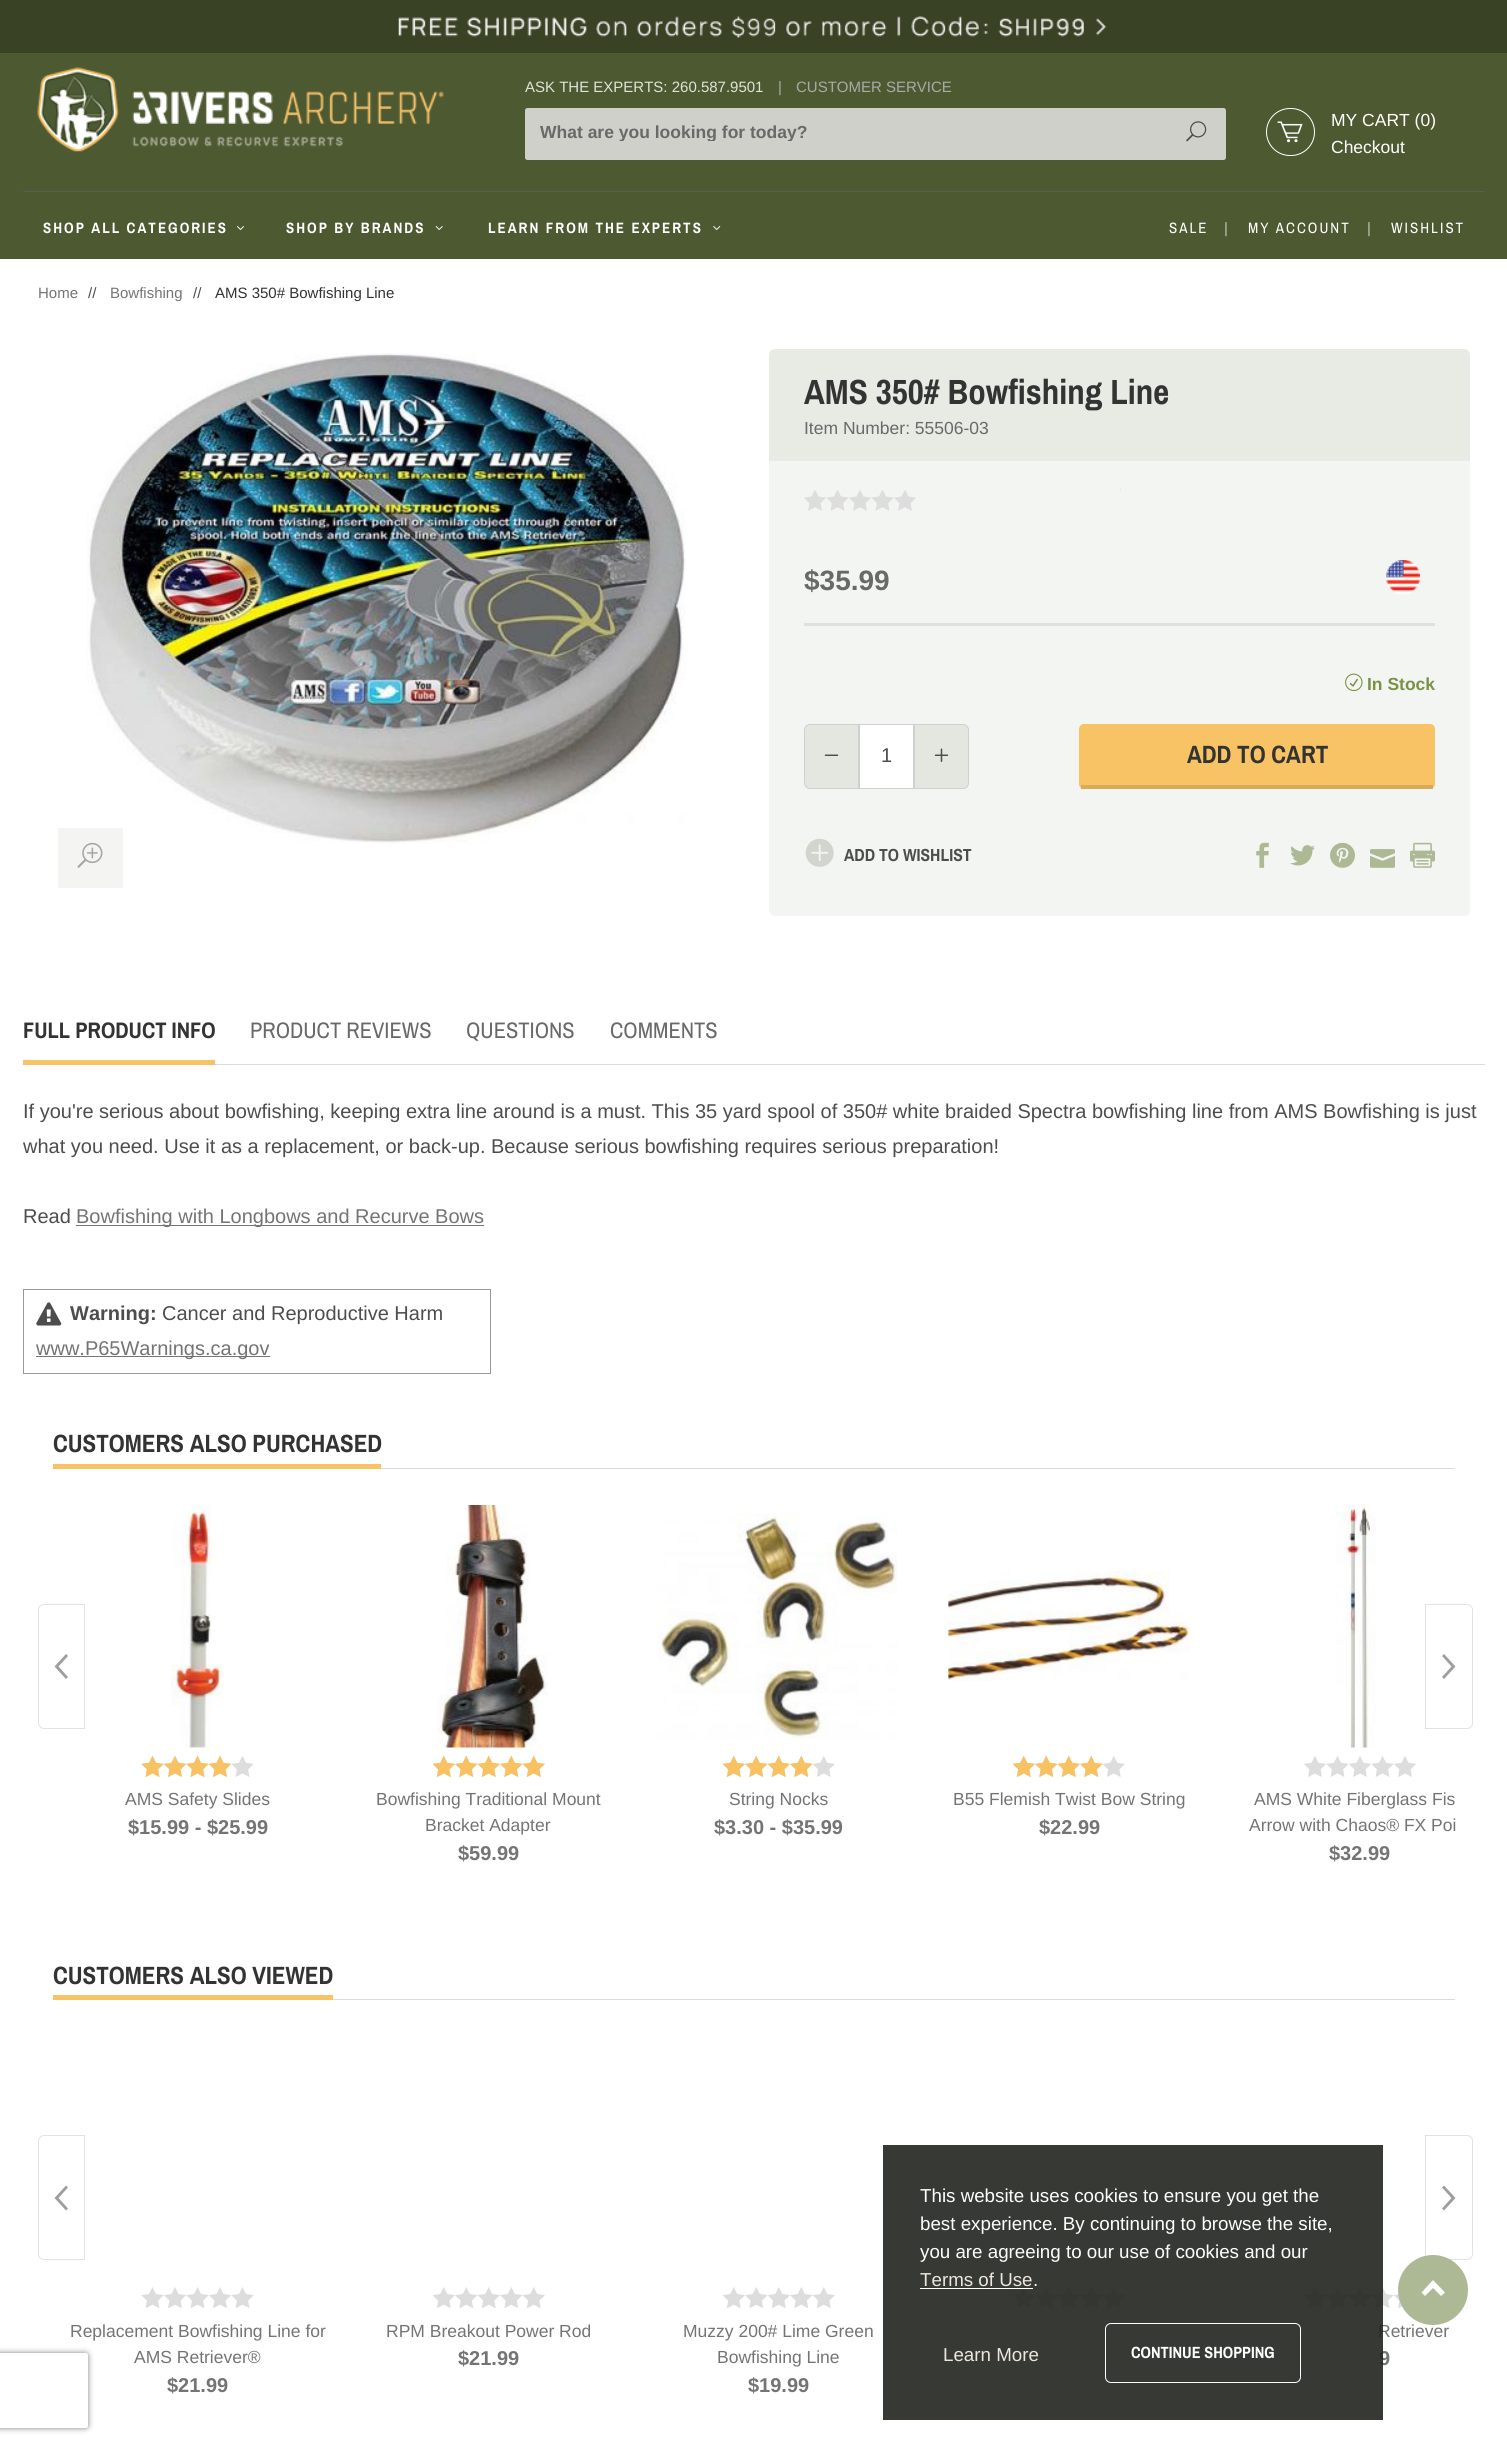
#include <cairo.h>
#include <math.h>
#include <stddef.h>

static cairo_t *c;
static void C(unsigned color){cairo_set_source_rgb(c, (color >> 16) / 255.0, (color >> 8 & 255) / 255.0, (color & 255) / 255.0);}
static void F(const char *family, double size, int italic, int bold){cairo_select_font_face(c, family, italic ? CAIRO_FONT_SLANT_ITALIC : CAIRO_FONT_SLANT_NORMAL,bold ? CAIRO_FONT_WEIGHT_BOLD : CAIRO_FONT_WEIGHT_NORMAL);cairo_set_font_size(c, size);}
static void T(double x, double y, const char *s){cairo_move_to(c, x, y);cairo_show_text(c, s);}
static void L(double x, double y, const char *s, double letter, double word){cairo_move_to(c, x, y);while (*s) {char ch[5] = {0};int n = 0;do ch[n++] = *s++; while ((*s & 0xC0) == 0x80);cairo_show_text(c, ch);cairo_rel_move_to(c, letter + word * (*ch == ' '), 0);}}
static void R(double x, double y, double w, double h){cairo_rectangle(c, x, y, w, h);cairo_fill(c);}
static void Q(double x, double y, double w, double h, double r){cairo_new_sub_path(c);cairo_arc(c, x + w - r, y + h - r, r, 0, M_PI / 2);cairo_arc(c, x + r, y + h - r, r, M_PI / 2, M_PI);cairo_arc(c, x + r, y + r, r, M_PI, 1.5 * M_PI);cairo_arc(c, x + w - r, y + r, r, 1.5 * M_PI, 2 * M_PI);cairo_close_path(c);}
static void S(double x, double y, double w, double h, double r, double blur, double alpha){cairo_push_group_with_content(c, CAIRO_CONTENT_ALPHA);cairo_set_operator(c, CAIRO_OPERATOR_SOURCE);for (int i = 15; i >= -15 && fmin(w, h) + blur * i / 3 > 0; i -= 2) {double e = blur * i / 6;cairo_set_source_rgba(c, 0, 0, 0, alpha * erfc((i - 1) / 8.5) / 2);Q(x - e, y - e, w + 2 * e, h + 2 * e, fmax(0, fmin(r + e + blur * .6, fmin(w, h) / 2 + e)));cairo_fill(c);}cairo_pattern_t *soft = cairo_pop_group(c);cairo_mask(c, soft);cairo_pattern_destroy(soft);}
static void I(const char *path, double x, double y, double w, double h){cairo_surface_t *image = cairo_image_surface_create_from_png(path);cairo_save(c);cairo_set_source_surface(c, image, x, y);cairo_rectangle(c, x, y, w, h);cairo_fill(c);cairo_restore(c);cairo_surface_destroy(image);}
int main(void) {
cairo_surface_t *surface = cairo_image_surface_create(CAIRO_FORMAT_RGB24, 1507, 2444);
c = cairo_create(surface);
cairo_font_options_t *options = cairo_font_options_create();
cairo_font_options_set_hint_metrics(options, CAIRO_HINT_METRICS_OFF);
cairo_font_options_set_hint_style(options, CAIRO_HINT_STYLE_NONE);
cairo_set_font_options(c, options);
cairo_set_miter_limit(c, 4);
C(0xffffff);
cairo_paint(c);
C(0x3a4225);
R(0,0,1507,53);
I("1.png",398,16,709,22);
C(0x4d5a31);
R(0,53,1507,206);
I("2.png",37,67,407,85);
F("Arimo",15,0,0);
C(0xe0e3da);
T(525,92,"ASK THE EXPERTS: 260.587.9501");
C(0xaaaaaa);
T(778,92,"|");
T(796,92,"CUSTOMER SERVICE");
C(0xced0c9);
Q(525,108,701,52,2.5);
cairo_fill(c);
cairo_save(c);
cairo_rectangle(c,540,121,548,20);
cairo_clip(c);
F("Arimo",17.5,0,1);
C(0x696969);
T(540,138,"What are you looking for today?");
cairo_restore(c);
I("3.png",1186,121,21,21);
Q(1266.5,108.5,48,47,23.5);
C(0xffffff);
cairo_set_line_width(c,1);
cairo_stroke(c);
I("4.png",1277,121,26,22);
F("Arimo",17.5,0,0);
T(1331,126,"MY CART (0)");
T(1331,153,"Checkout");
C(0x5b5c54);
R(23,191,1462,1);
F("Archivo Narrow",15,0,1);
C(0xffffff);
L(43,233,"SHOP ALL CATEGORIES",2,0);
I("5.png",237,226,7,4);
L(286,233,"SHOP BY BRANDS",2,0);
I("6.png",435,226,8,4);
L(488,233,"LEARN FROM THE EXPERTS",2,0);
I("7.png",713,226,8,4);
F("Archivo Narrow",15,0,0);
L(1169,233,"SALE",2,0);
F("Arimo",15,0,0);
C(0xc1c3bd);
T(1224,233,"|");
F("Archivo Narrow",15,0,0);
C(0xffffff);
L(1248,233,"MY ACCOUNT",2,0);
F("Arimo",15,0,0);
C(0xc1c3bd);
T(1367,233,"|");
F("Archivo Narrow",15,0,0);
C(0xffffff);
L(1391,233,"WISHLIST",2,0);
F("Arimo",15,0,0);
C(0x747474);
T(38,298,"Home");
C(0x4d4d4d);
T(88,298,"//");
C(0x747474);
T(110,298,"Bowfishing");
C(0x4d4d4d);
T(193,298,"//");
C(0x333333);
T(215,298,"AMS 350# Bowfishing Line");
I("8.png",86,353,600,493);
C(0xf4f5f2);
R(58,828,65,60);
I("9.png",77,842,26,26);
C(0xe8eae4);
cairo_new_path(c);
cairo_move_to(c,775,349);
cairo_line_to(c,1464,349);
cairo_curve_to(c,1467.5,349,1470,351.5,1470,355);
cairo_line_to(c,1470,461);
cairo_line_to(c,769,461);
cairo_line_to(c,769,355);
cairo_curve_to(c,769,351.5,771.5,349,775,349);
cairo_close_path(c);
cairo_fill(c);
F("Archivo Narrow",35,0,1);
C(0x333333);
T(804,404,"AMS 350# Bowfishing Line");
F("Arimo",17.5,0,0);
C(0x696969);
T(804,434,"Item Number: 55506-03");
C(0xf3f5f2);
cairo_new_path(c);
cairo_move_to(c,769,461);
cairo_line_to(c,1470,461);
cairo_line_to(c,1470,910);
cairo_curve_to(c,1470,913.5,1467.5,916,1464,916);
cairo_line_to(c,775,916);
cairo_curve_to(c,771.5,916,769,913.5,769,910);
cairo_close_path(c);
cairo_fill(c);
C(0xdddfd8);
R(1120,489,1,1);
I("10.png",804,490,112,21);
F("Arimo",28,0,1);
C(0x696969);
T(804,590,"$35.99");
I("11.png",1386,560,34,34);
C(0xdfe1e1);
R(804,623,631,3);
I("12.png",1345,673,18,19);
F("Arimo",17.5,0,1);
C(0x7a9244);
T(1367,690,"In Stock");
C(0xe4e6e0);
cairo_new_path(c);
cairo_move_to(c,810,724.5);
cairo_line_to(c,858.5,724.5);
cairo_line_to(c,858.5,788.5);
cairo_line_to(c,810,788.5);
cairo_curve_to(c,807,788.5,804.5,786,804.5,783);
cairo_line_to(c,804.5,730);
cairo_curve_to(c,804.5,727,807,724.5,810,724.5);
cairo_close_path(c);
cairo_fill_preserve(c);
C(0xd0d0d0);
cairo_stroke(c);
I("13.png",824,754,15,2);
C(0xffffff);
cairo_rectangle(c,859.5,724.5,54,64);
cairo_fill_preserve(c);
C(0xd0d0d0);
cairo_stroke(c);
F("Arimo",20,0,0);
C(0x4d4d4d);
T(881,762,"1");
C(0xe4e6e0);
cairo_new_path(c);
cairo_move_to(c,914.5,724.5);
cairo_line_to(c,963,724.5);
cairo_curve_to(c,966,724.5,968.5,727,968.5,730);
cairo_line_to(c,968.5,783);
cairo_curve_to(c,968.5,786,966,788.5,963,788.5);
cairo_line_to(c,914.5,788.5);
cairo_close_path(c);
cairo_fill_preserve(c);
C(0xd0d0d0);
cairo_stroke(c);
I("14.png",934,748,15,14);
C(0xf8c364);
Q(1079,724,356,65,5);
cairo_fill(c);
C(0xd9ab59);
R(1081,785,352,4);
F("Archivo Narrow",25,0,1);
C(0x333333);
T(1187,763,"ADD TO CART");
I("15.png",805,838,29,29);
F("Archivo Narrow",17.5,0,1);
C(0x4d4d4d);
T(844,861,"ADD TO WISHLIST");
I("16.png",1256,842,13,26);
I("17.png",1290,845,25,21);
I("18.png",1330,842,25,26);
I("19.png",1370,849,25,19);
I("20.png",1410,842,25,26);
C(0xdcdcdc);
R(215,1064,1270,1);
C(0xf8c364);
R(23,1060,192,5);
F("Archivo Narrow",22.5,0,1);
C(0x333333);
T(23,1038,"FULL PRODUCT INFO");
F("Archivo Narrow",22.5,0,0);
C(0x696969);
T(250,1038,"PRODUCT REVIEWS");
T(466,1038,"QUESTIONS");
T(610,1038,"COMMENTS");
F("Arimo",20,0,0);
C(0x4d4d4d);
T(23,1118,"If you're serious about bowfishing, keeping extra line around is a must. This 35 yard spool of 350# white braided Spectra bowfishing line from AMS Bowfishing is just");
T(23,1153,"what you need. Use it as a replacement, or back-up. Because serious bowfishing requires serious preparation!");
T(23,1223,"Read");
C(0x747474);
R(76,1225,408,1);
T(76,1223,"Bowfishing with Longbows and Recurve Bows");
cairo_rectangle(c,23.5,1289.5,467,84);
C(0x999999);
cairo_stroke(c);
I("21.png",36,1302,26,24);
F("Arimo",20,0,1);
C(0x4d4d4d);
T(70,1320,"Warning:");
F("Arimo",20,0,0);
T(162,1320,"Cancer and Reproductive Harm");
C(0x747474);
R(36,1356,234,1);
T(36,1355,"www.P65Warnings.ca.gov");
C(0xdcdcdc);
R(381,1468,1074,1);
C(0xf8c364);
R(53,1464,328,5);
F("Archivo Narrow",25,0,1);
C(0x333333);
T(53,1452,"CUSTOMERS ALSO PURCHASED");
cairo_new_path(c);
cairo_move_to(c,44,1604.5);
cairo_line_to(c,84.5,1604.5);
cairo_line_to(c,84.5,1728.5);
cairo_line_to(c,44,1728.5);
cairo_curve_to(c,41,1728.5,38.5,1726,38.5,1723);
cairo_line_to(c,38.5,1610);
cairo_curve_to(c,38.5,1607,41,1604.5,44,1604.5);
cairo_close_path(c);
C(0xe2e2e2);
cairo_stroke(c);
C(0x9e9e9e);
cairo_new_path(c);
cairo_move_to(c,66,1654);
cairo_line_to(c,68,1656);
cairo_line_to(c,58.5,1666.5);
cairo_line_to(c,68,1677);
cairo_line_to(c,66,1679);
cairo_line_to(c,54.5,1666.5);
cairo_close_path(c);
cairo_fill(c);
cairo_new_path(c);
cairo_move_to(c,1425.5,1604.5);
cairo_line_to(c,1467,1604.5);
cairo_curve_to(c,1470,1604.5,1472.5,1607,1472.5,1610);
cairo_line_to(c,1472.5,1723);
cairo_curve_to(c,1472.5,1726,1470,1728.5,1467,1728.5);
cairo_line_to(c,1425.5,1728.5);
cairo_close_path(c);
C(0xe2e2e2);
cairo_stroke(c);
C(0x9e9e9e);
cairo_new_path(c);
cairo_move_to(c,1444,1679);
cairo_line_to(c,1442,1677);
cairo_line_to(c,1451.5,1666.5);
cairo_line_to(c,1442,1656);
cairo_line_to(c,1444,1654);
cairo_line_to(c,1455.5,1666.5);
cairo_close_path(c);
cairo_fill(c);
I("22.png",171,1505,54,243);
I("24.png",141,1756,113,21);
I("23.png",141,1755,90,22);
F("Arimo",17.5,0,0);
C(0x747474);
T(125,1805,"AMS Safety Slides");
F("Arimo",20,0,1);
T(128,1834,"$15.99 - $25.99");
I("25.png",437,1505,111,243);
I("27.png",433,1756,112,21);
I("26.png",433,1755,112,22);
F("Arimo",17.5,0,0);
T(376,1805,"Bowfishing Traditional Mount");
T(425,1831,"Bracket Adapter");
F("Arimo",20,0,1);
T(458,1860,"$59.99");
I("28.png",657,1513,241,226);
I("27.png",723,1756,112,21);
I("29.png",723,1755,90,22);
F("Arimo",17.5,0,0);
T(729,1805,"String Nocks");
F("Arimo",20,0,1);
T(714,1834,"$3.30 - $35.99");
I("30.png",948,1571,242,110);
I("27.png",1013,1756,112,21);
I("29.png",1013,1755,90,22);
F("Arimo",17.5,0,0);
T(953,1805,"B55 Flemish Twist Bow String");
F("Arimo",20,0,1);
T(1039,1834,"$22.99");
I("31.png",1336,1505,40,243);
I("32.png",1304,1756,112,21);
F("Arimo",17.5,0,0);
T(1254,1805,"AMS White Fiberglass Fis");
T(1249,1831,"Arrow with Chaos® FX Poi");
F("Arimo",20,0,1);
T(1329,1860,"$32.99");
C(0xdcdcdc);
R(333,1999,1122,1);
C(0xf8c364);
R(53,1995,280,5);
F("Archivo Narrow",25,0,1);
C(0x333333);
T(53,1984,"CUSTOMERS ALSO VIEWED");
cairo_new_path(c);
cairo_move_to(c,44,2135.5);
cairo_line_to(c,84.5,2135.5);
cairo_line_to(c,84.5,2259.5);
cairo_line_to(c,44,2259.5);
cairo_curve_to(c,41,2259.5,38.5,2257,38.5,2254);
cairo_line_to(c,38.5,2141);
cairo_curve_to(c,38.5,2138,41,2135.5,44,2135.5);
cairo_close_path(c);
C(0xe2e2e2);
cairo_stroke(c);
C(0x9e9e9e);
cairo_new_path(c);
cairo_move_to(c,66,2185.5);
cairo_line_to(c,68,2187.5);
cairo_line_to(c,58.5,2198);
cairo_line_to(c,68,2208.5);
cairo_line_to(c,66,2210.5);
cairo_line_to(c,54.5,2198);
cairo_close_path(c);
cairo_fill(c);
cairo_new_path(c);
cairo_move_to(c,1425.5,2135.5);
cairo_line_to(c,1467,2135.5);
cairo_curve_to(c,1470,2135.5,1472.5,2138,1472.5,2141);
cairo_line_to(c,1472.5,2254);
cairo_curve_to(c,1472.5,2257,1470,2259.5,1467,2259.5);
cairo_line_to(c,1425.5,2259.5);
cairo_close_path(c);
C(0xe2e2e2);
cairo_stroke(c);
C(0x9e9e9e);
cairo_new_path(c);
cairo_move_to(c,1444,2210.5);
cairo_line_to(c,1442,2208.5);
cairo_line_to(c,1451.5,2198);
cairo_line_to(c,1442,2187.5);
cairo_line_to(c,1444,2185.5);
cairo_line_to(c,1455.5,2198);
cairo_close_path(c);
cairo_fill(c);
I("33.png",1013,2287,112,21);
I("34.png",141,2287,113,21);
F("Arimo",17.5,0,0);
C(0x747474);
T(70,2337,"Replacement Bowfishing Line for");
T(134,2363,"AMS Retriever®");
F("Arimo",20,0,1);
T(167,2392,"$21.99");
I("33.png",433,2287,112,21);
F("Arimo",17.5,0,0);
T(386,2337,"RPM Breakout Power Rod");
F("Arimo",20,0,1);
T(458,2365,"$21.99");
I("33.png",723,2287,112,21);
F("Arimo",17.5,0,0);
T(683,2337,"Muzzy 200# Lime Green");
T(717,2363,"Bowfishing Line");
F("Arimo",20,0,1);
T(748,2392,"$19.99");
I("35.png",1304,2287,99,21);
F("Arimo",17.5,0,0);
T(1378,2337,"Retriever");
F("Arimo",20,0,1);
T(1379,2365,"9");
cairo_set_source_rgba(c,0.133,0.141,0.118,0.9);
R(883,2145,500,275);
F("Arimo",18.75,0,0);
C(0xffffff);
T(920,2202,"This website uses cookies to ensure you get the");
T(920,2230,"best experience. By continuing to browse the site,");
T(920,2258,"you are agreeing to our use of cookies and our");
C(0xece7de);
T(920,2286,"Terms of Use");
C(0xffffff);
R(920,2288,113,1);
T(1033,2286,".");
C(0xece7de);
T(943,2361,"Learn More");
Q(1105.5,2323.5,195,59,5.5);
C(0xffffff);
cairo_stroke(c);
F("Archivo Narrow",16.25,0,1);
T(1131,2358,"CONTINUE SHOPPING");
C(0xadb895);
cairo_new_path(c);
cairo_arc(c,1433,2290,35,0,2 * M_PI);
cairo_fill(c);
C(0xffffff);
cairo_set_fill_rule(c,CAIRO_FILL_RULE_EVEN_ODD);
cairo_new_path(c);
cairo_move_to(c,1421.5,2292.5);
cairo_line_to(c,1425,2296);
cairo_line_to(c,1433,2288);
cairo_line_to(c,1441,2296);
cairo_line_to(c,1445,2292.5);
cairo_line_to(c,1433,2280);
cairo_close_path(c);
cairo_fill(c);
cairo_save(c);
cairo_new_path(c);
cairo_move_to(c,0,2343);
cairo_line_to(c,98,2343);
cairo_line_to(c,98,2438);
cairo_line_to(c,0,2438);
cairo_close_path(c);
cairo_move_to(c,-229.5,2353);
cairo_line_to(c,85.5,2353);
cairo_curve_to(c,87,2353,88,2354,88,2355.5);
cairo_line_to(c,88,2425.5);
cairo_curve_to(c,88,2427,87,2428,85.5,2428);
cairo_line_to(c,-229.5,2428);
cairo_curve_to(c,-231,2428,-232,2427,-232,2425.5);
cairo_line_to(c,-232,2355.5);
cairo_curve_to(c,-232,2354,-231,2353,-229.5,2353);
cairo_close_path(c);
cairo_clip(c);
C(0x808080);
S(-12,2353,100,75,2.5,3,1);
cairo_restore(c);
cairo_surface_write_to_png(surface, "o.png");
cairo_font_options_destroy(options);
cairo_destroy(c);
cairo_surface_destroy(surface);
return 0;
}
